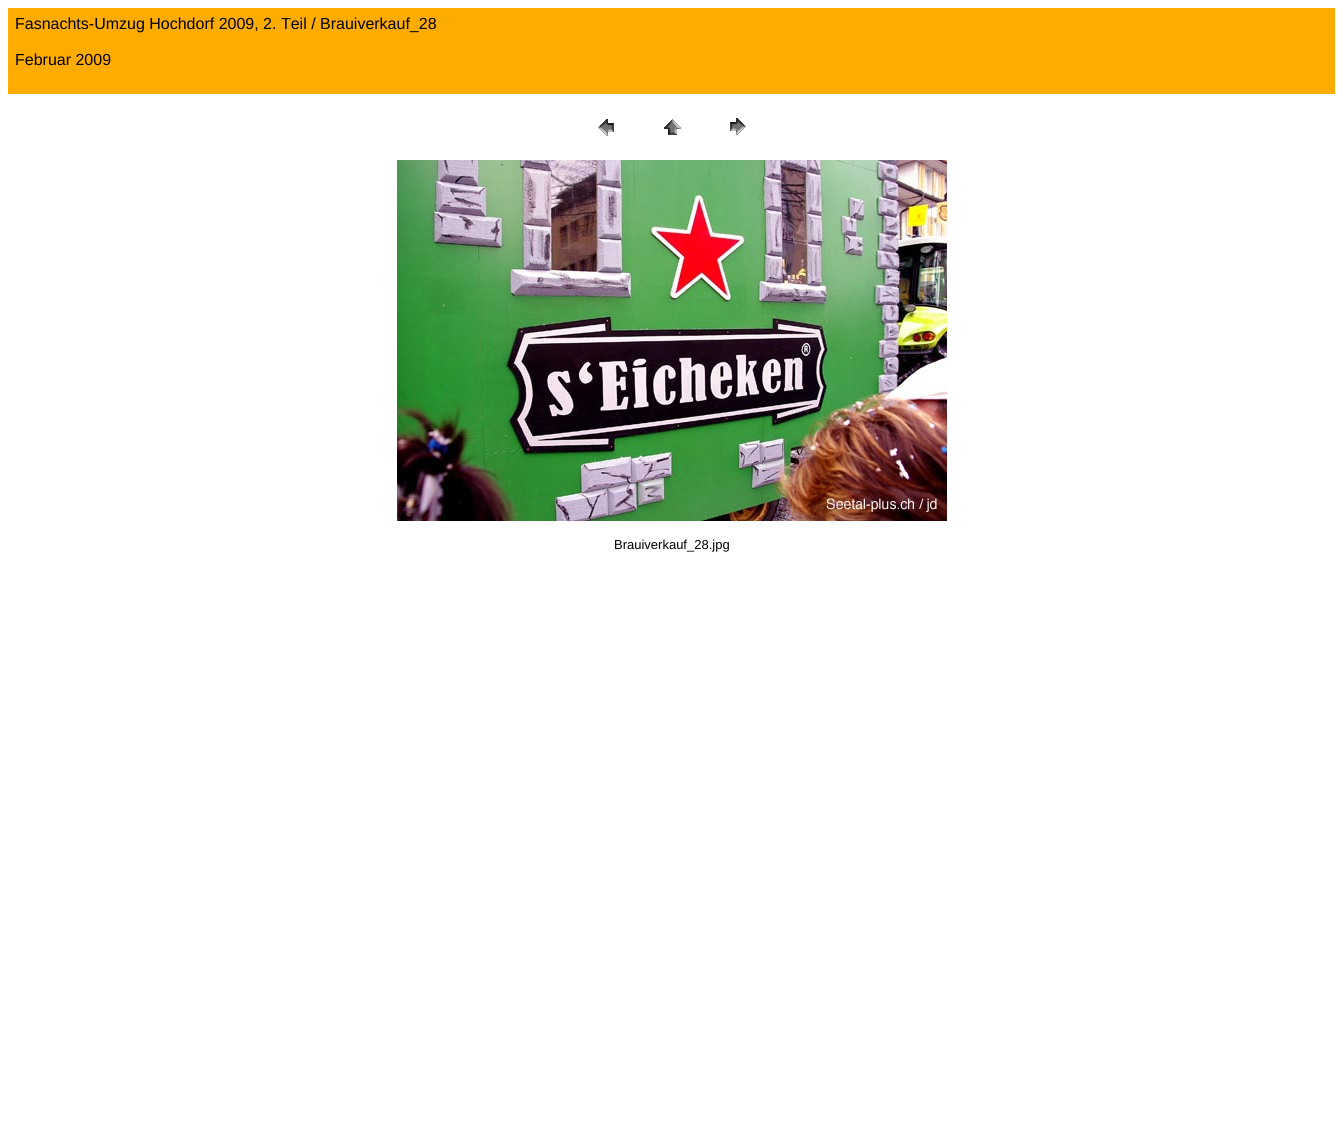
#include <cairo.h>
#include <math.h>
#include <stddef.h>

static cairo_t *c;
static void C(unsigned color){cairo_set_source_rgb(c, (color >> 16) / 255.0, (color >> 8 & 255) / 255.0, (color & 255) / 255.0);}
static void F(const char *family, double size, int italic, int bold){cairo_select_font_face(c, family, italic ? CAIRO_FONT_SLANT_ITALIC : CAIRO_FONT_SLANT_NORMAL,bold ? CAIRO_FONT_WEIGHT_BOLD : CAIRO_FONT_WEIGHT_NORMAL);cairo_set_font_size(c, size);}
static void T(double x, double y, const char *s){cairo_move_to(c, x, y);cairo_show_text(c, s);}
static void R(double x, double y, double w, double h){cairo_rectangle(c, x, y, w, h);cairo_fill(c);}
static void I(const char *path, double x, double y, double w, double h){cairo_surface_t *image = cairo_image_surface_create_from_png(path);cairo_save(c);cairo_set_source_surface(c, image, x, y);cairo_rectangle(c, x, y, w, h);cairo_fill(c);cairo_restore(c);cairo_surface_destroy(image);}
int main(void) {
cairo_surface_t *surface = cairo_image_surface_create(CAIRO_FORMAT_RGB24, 1343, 1136);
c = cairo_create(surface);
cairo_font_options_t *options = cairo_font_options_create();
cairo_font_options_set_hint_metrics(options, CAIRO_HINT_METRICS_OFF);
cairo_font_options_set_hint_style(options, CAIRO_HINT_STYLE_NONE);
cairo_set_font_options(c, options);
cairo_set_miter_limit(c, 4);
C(0xffffff);
cairo_paint(c);
C(0xfead00);
R(8,8,1327,86);
F("Liberation Sans",16,0,0);
C(0x000000);
T(15,29,"Fasnachts-Umzug Hochdorf 2009, 2. Teil / Brauiverkauf_28");
T(15,65,"Februar 2009");
I("1.png",598,119,16,17);
I("2.png",664,119,17,16);
I("3.png",730,118,16,17);
I("4.png",397,160,550,361);
F("Liberation Sans",13,0,0);
T(614,549,"Brauiverkauf_28.jpg");
cairo_surface_write_to_png(surface, "o.png");
cairo_font_options_destroy(options);
cairo_destroy(c);
cairo_surface_destroy(surface);
return 0;
}
